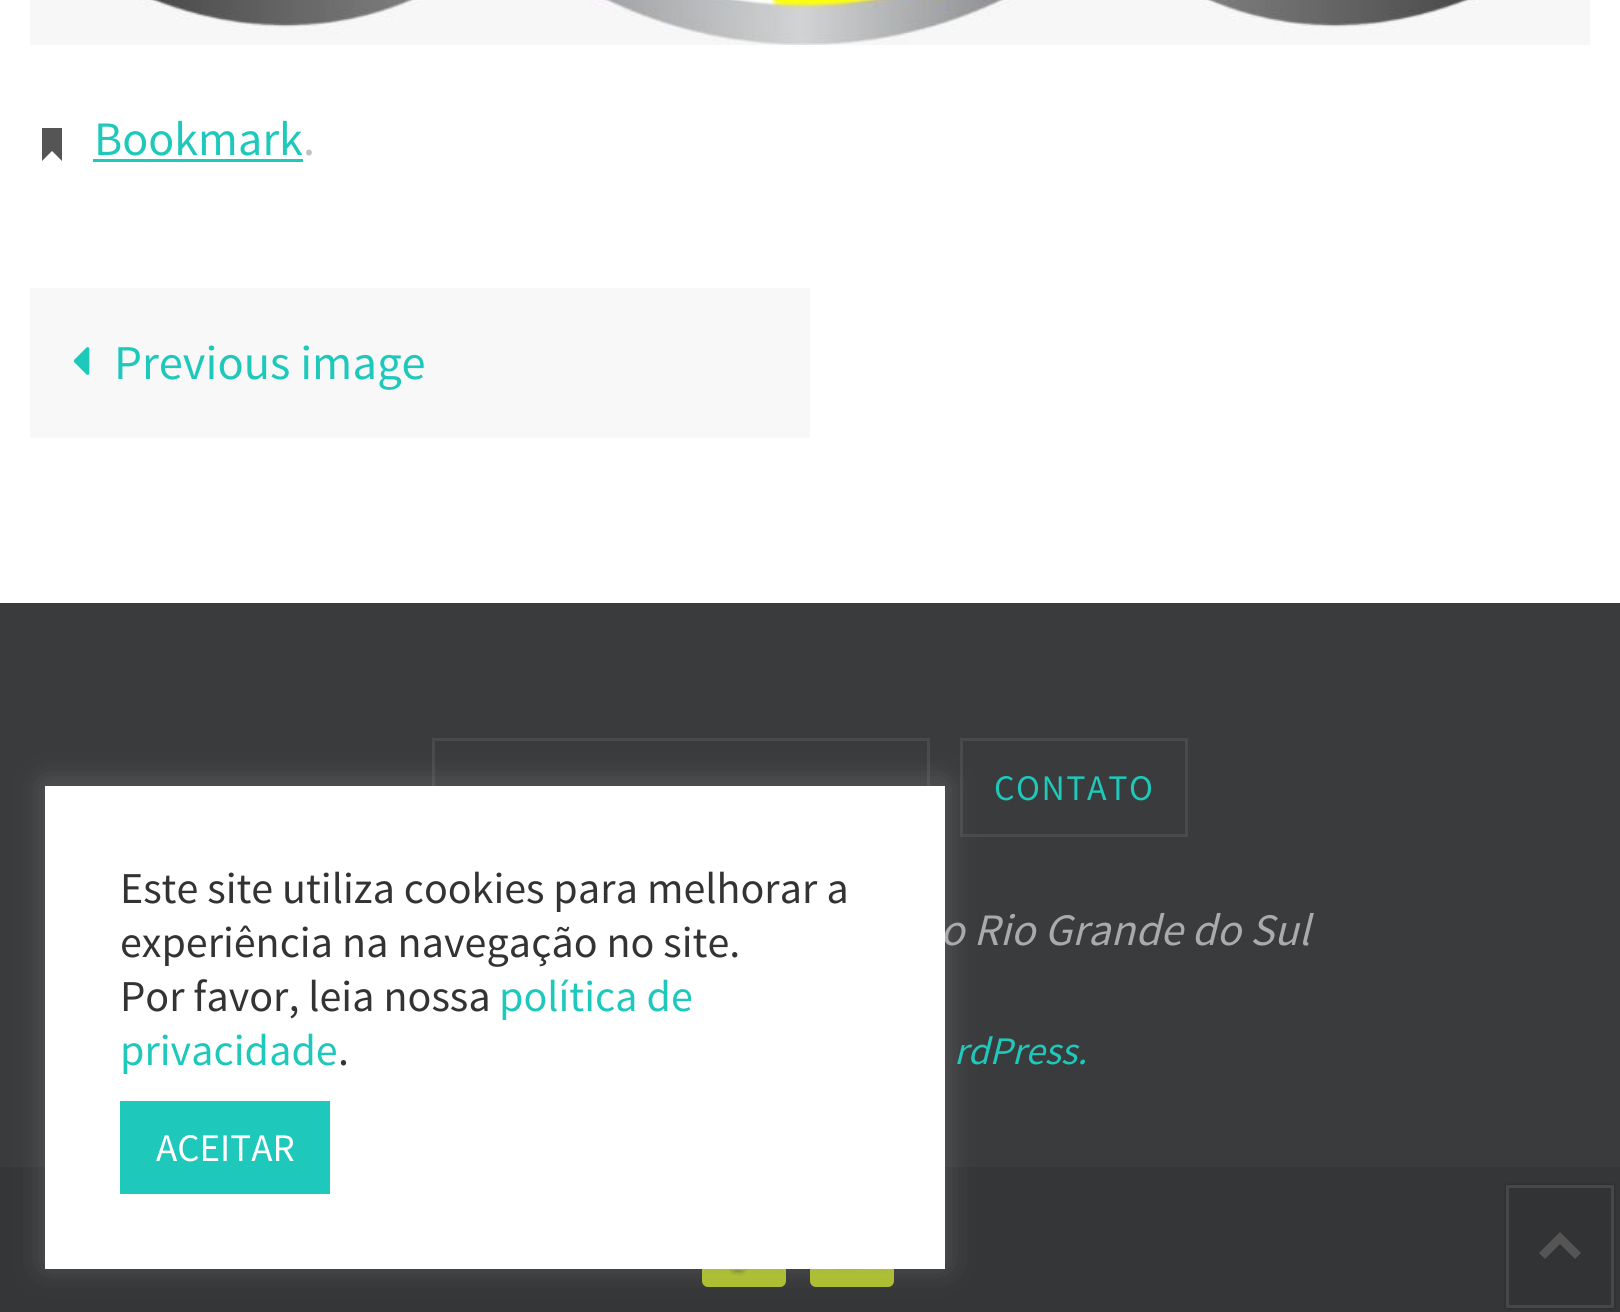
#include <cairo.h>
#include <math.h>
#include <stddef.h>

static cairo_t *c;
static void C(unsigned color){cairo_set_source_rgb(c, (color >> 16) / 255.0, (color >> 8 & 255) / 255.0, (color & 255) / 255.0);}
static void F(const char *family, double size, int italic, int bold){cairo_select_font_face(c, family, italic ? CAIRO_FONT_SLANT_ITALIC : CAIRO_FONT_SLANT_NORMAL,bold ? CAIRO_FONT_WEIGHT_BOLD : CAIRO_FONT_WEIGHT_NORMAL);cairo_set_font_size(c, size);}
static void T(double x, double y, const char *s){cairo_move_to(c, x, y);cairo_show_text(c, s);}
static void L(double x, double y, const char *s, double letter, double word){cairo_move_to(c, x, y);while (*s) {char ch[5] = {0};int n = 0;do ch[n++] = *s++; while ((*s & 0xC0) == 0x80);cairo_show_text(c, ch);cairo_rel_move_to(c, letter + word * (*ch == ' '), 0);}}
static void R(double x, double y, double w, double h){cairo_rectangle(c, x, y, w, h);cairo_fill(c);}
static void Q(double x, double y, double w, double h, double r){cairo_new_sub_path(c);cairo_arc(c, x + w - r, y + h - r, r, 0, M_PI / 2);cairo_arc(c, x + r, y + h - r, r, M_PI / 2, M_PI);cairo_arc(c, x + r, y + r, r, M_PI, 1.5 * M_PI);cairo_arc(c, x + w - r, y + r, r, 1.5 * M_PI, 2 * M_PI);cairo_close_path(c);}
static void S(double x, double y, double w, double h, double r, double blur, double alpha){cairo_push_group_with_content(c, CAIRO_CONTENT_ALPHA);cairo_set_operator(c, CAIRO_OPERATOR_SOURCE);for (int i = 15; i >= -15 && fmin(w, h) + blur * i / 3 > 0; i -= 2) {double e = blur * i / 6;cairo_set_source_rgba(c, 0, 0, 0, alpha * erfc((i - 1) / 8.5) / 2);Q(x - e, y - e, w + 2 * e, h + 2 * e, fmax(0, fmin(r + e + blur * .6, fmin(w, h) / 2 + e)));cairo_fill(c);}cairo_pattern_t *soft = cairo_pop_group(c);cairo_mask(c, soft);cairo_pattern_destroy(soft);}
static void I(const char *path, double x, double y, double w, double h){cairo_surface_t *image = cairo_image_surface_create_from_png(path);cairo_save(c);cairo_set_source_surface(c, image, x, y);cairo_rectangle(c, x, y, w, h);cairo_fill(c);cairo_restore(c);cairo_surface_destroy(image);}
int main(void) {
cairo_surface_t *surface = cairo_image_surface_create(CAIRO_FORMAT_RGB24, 1620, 1312);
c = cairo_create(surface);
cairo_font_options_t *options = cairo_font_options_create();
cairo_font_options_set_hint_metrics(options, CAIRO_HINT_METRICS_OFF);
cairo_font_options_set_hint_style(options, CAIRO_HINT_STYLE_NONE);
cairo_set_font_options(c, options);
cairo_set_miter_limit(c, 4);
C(0xffffff);
cairo_paint(c);
I("1.png",30,0,1560,45);
C(0x555555);
cairo_new_path(c);
cairo_move_to(c,42,158);
cairo_line_to(c,42,128);
cairo_line_to(c,62,128);
cairo_line_to(c,62,161);
cairo_line_to(c,52,151);
cairo_line_to(c,42,161);
cairo_close_path(c);
cairo_fill(c);
F("Source Sans Pro",48,0,0);
C(0x1ec8bb);
T(94,155,"Bookmark");
R(93,159,210,3);
C(0xc1c1c1);
T(303,155,".");
C(0xf8f8f8);
R(30,288,780,150);
I("2.png",73,347,17,28);
F("Source Sans Pro",48.5,0,0);
C(0x1ec8bb);
T(114,379,"Previous image");
C(0x3a3b3d);
R(0,603,1620,564);
cairo_rectangle(c,433.5,739.5,495,96);
C(0x494a4c);
cairo_set_line_width(c,3);
cairo_stroke(c);
cairo_rectangle(c,961.5,739.5,225,96);
cairo_stroke(c);
F("Source Sans Pro",36,0,0);
C(0x1ec8bb);
L(994,800,"CONTATO",1.5,0);
F("Source Sans Pro",45,1,0);
C(0xaaaaaa);
T(940,945,"o Rio Grande do Sul");
F("Source Sans Pro",39,1,0);
C(0x1ec8bb);
T(954,1064,"rdPress.");
C(0x353638);
R(0,1167,1620,145);
C(0xadbf2d);
Q(702,1203,84,84,6);
cairo_fill(c);
I("3.png",729,1269,18,7);
Q(810,1203,84,84,6);
cairo_fill(c);
I("4.png",835,1269,28,1);
C(0x000000);
S(1506,1185,108,123,0,1.5,.28);
C(0x323335);
cairo_rectangle(c,1507.5,1186.5,105,120);
cairo_fill_preserve(c);
C(0x474749);
cairo_stroke(c);
C(0x555555);
cairo_new_path(c);
cairo_move_to(c,1539,1253);
cairo_line_to(c,1560,1232);
cairo_line_to(c,1581,1253);
cairo_line_to(c,1575,1259);
cairo_line_to(c,1560,1244);
cairo_line_to(c,1545,1259);
cairo_close_path(c);
cairo_fill(c);
C(0xacabab);
S(45,783,900,483,0,15,.3);
C(0xffffff);
R(45,786,900,483);
F("Source Sans Pro",44,0,0);
C(0x333333);
T(120,903,"Este site utiliza cookies para melhorar a");
T(120,957,"experiência na navegação no site.");
T(120,1011,"Por favor, leia nossa");
C(0x1ec8bb);
T(499,1011,"política de");
T(120,1065,"privacidade");
C(0x333333);
T(338,1065,".");
C(0x1ec8bb);
R(120,1101,210,93);
F("Source Sans Pro",39,0,0);
C(0xffffff);
T(156,1161,"ACEITAR");
cairo_surface_write_to_png(surface, "o.png");
cairo_font_options_destroy(options);
cairo_destroy(c);
cairo_surface_destroy(surface);
return 0;
}
